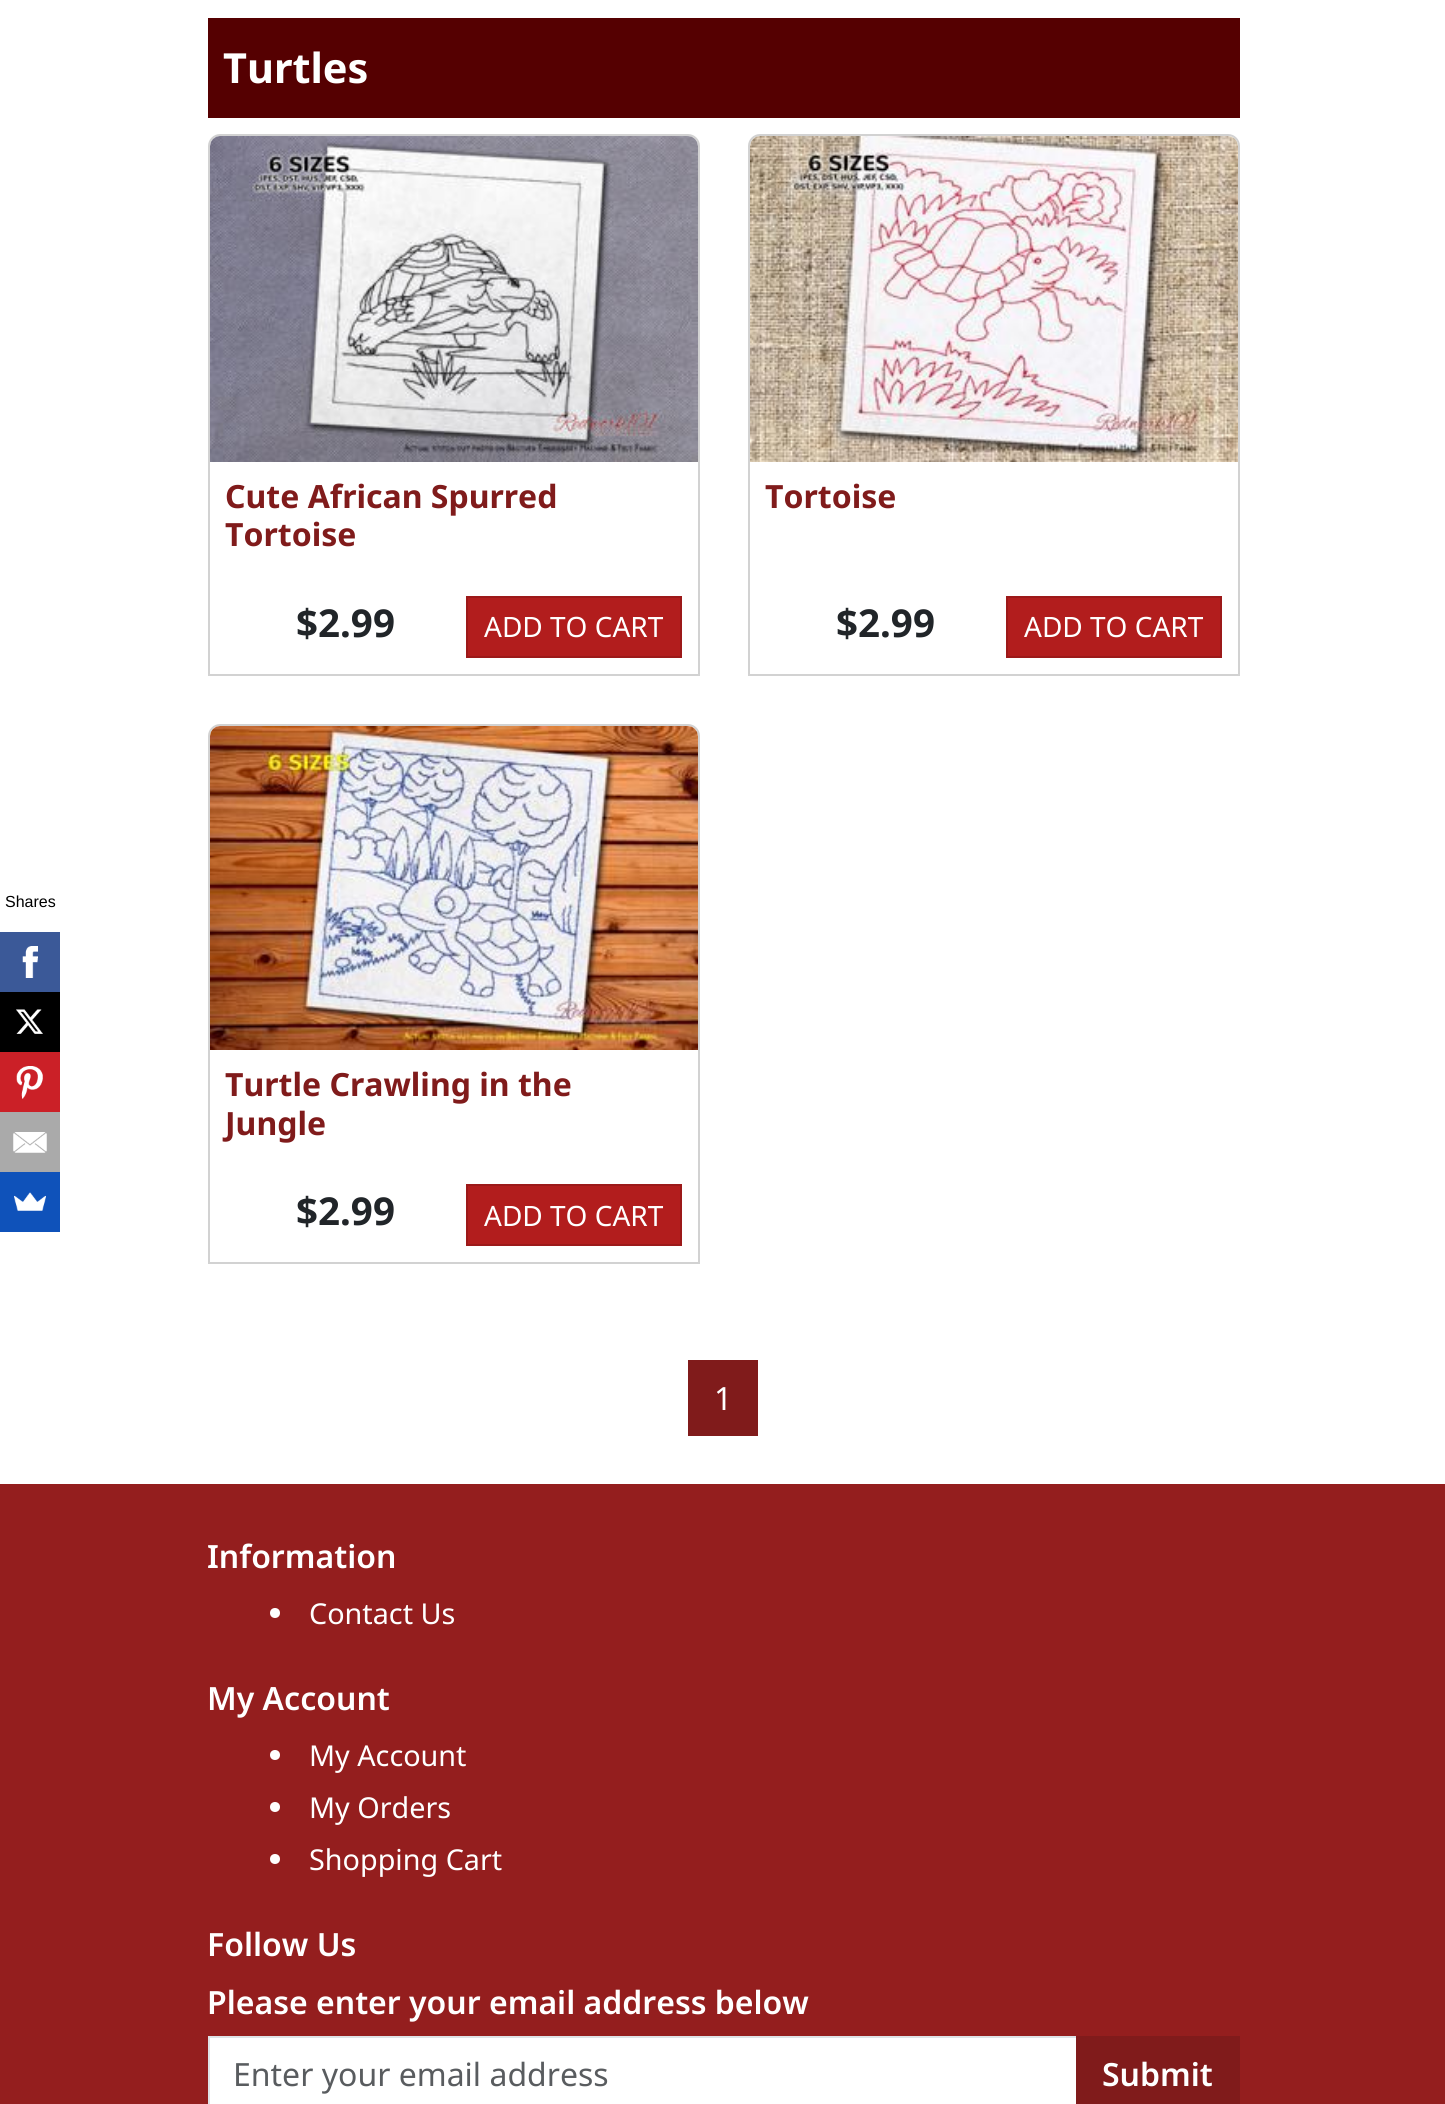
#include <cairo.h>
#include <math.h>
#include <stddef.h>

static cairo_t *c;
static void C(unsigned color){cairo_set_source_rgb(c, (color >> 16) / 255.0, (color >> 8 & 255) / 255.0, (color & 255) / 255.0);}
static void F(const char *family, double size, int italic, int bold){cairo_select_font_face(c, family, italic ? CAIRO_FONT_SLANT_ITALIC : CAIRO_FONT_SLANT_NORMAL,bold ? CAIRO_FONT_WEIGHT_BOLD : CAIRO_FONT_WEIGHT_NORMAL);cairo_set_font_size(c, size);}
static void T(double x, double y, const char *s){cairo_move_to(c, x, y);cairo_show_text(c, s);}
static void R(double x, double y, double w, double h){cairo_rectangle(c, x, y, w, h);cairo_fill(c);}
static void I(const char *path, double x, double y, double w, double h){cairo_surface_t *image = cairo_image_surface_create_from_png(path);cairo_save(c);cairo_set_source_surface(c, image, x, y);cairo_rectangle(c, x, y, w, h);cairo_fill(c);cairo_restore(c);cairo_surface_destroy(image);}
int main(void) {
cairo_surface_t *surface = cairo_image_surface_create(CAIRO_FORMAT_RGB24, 1445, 2104);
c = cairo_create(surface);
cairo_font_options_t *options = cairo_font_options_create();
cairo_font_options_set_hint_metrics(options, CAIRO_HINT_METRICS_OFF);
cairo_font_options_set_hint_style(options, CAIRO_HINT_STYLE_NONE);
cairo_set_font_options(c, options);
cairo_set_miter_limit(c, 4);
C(0xffffff);
cairo_paint(c);
F("Liberation Sans",16,0,0);
C(0x000000);
T(5,907,"Shares");
C(0x3b5998);
R(0,932,60,60);
I("1.png",22,946,16,32);
C(0x000000);
R(0,992,60,60);
I("2.png",16,1009,27,25);
C(0xcb2027);
R(0,1052,60,60);
I("3.png",16,1066,27,33);
C(0xaaaaaa);
R(0,1112,60,60);
I("4.png",13,1132,34,21);
C(0x0f52ba);
R(0,1172,60,60);
I("5.png",14,1192,32,19);
C(0x550001);
R(208,18,1032,100);
F("Noto Sans",41.5,0,1);
C(0xffffff);
T(223,83,"Turtles");
cairo_new_path(c);
cairo_move_to(c,220,135);
cairo_line_to(c,688,135);
cairo_curve_to(c,694,135,699,140,699,146);
cairo_line_to(c,699,675);
cairo_line_to(c,209,675);
cairo_line_to(c,209,146);
cairo_curve_to(c,209,140,214,135,220,135);
cairo_close_path(c);
C(0xd2d2d2);
cairo_stroke(c);
I("6.png",210,136,488,326);
F("Noto Sans",32,0,1);
C(0x801b1b);
T(225,508,"Cute African Spurred");
T(225,546,"Tortoise");
F("Noto Sans",38.5,0,1);
C(0x212529);
T(296,637,"$2.99");
C(0xb21d1d);
cairo_rectangle(c,467,597,214,60);
cairo_fill_preserve(c);
C(0x9c1919);
cairo_stroke(c);
F("Noto Sans",28,0,0);
C(0xffffff);
T(484,637,"ADD TO CART");
cairo_new_path(c);
cairo_move_to(c,760,135);
cairo_line_to(c,1228,135);
cairo_curve_to(c,1234,135,1239,140,1239,146);
cairo_line_to(c,1239,675);
cairo_line_to(c,749,675);
cairo_line_to(c,749,146);
cairo_curve_to(c,749,140,754,135,760,135);
cairo_close_path(c);
C(0xd2d2d2);
cairo_stroke(c);
I("7.png",750,136,488,326);
F("Noto Sans",32,0,1);
C(0x801b1b);
T(765,508,"Tortoise");
F("Noto Sans",38.5,0,1);
C(0x212529);
T(836,637,"$2.99");
C(0xb21d1d);
cairo_rectangle(c,1007,597,214,60);
cairo_fill_preserve(c);
C(0x9c1919);
cairo_stroke(c);
F("Noto Sans",28,0,0);
C(0xffffff);
T(1024,637,"ADD TO CART");
cairo_new_path(c);
cairo_move_to(c,220,725);
cairo_line_to(c,688,725);
cairo_curve_to(c,694,725,699,730,699,736);
cairo_line_to(c,699,1263);
cairo_line_to(c,209,1263);
cairo_line_to(c,209,736);
cairo_curve_to(c,209,730,214,725,220,725);
cairo_close_path(c);
C(0xd2d2d2);
cairo_stroke(c);
I("8.png",210,726,488,324);
F("Noto Sans",32,0,1);
C(0x801b1b);
T(225,1096,"Turtle Crawling in the");
T(225,1135,"Jungle");
F("Noto Sans",38.5,0,1);
C(0x212529);
T(296,1225,"$2.99");
C(0xb21d1d);
cairo_rectangle(c,467,1185,214,60);
cairo_fill_preserve(c);
C(0x9c1919);
cairo_stroke(c);
F("Noto Sans",28,0,0);
C(0xffffff);
T(484,1226,"ADD TO CART");
C(0x801b1b);
R(688,1360,70,76);
F("Noto Sans",32,0,0);
C(0xffffff);
T(714,1410,"1");
C(0x941e1e);
R(0,1484,1445,620);
F("Noto Sans SemiBold",32,0,0);
C(0xffffff);
T(207,1568,"Information");
cairo_new_path(c);
cairo_arc(c,275,1613,5,0,2 * M_PI);
cairo_fill(c);
F("Noto Sans",28.75,0,0);
T(309,1624,"Contact Us");
F("Noto Sans SemiBold",32,0,0);
T(207,1710,"My Account");
cairo_new_path(c);
cairo_arc(c,275,1755,5,0,2 * M_PI);
cairo_fill(c);
F("Noto Sans",28.75,0,0);
T(309,1766,"My Account");
cairo_new_path(c);
cairo_arc(c,275,1807,5,0,2 * M_PI);
cairo_fill(c);
T(309,1818,"My Orders");
cairo_new_path(c);
cairo_arc(c,275,1859,5,0,2 * M_PI);
cairo_fill(c);
T(309,1870,"Shopping Cart");
F("Noto Sans SemiBold",32,0,0);
T(207,1956,"Follow Us");
T(207,2014,"Please enter your email address below");
cairo_rectangle(c,209,2037,868,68);
cairo_fill_preserve(c);
C(0xdee2e6);
cairo_stroke(c);
F("Noto Sans",32,0,0);
C(0x595c5f);
T(233,2086,"Enter your email address");
C(0x801b1b);
R(1076,2036,164,68);
F("Noto Sans SemiBold",32,0,0);
C(0xffffff);
T(1102,2086,"Submit");
cairo_surface_write_to_png(surface, "o.png");
cairo_font_options_destroy(options);
cairo_destroy(c);
cairo_surface_destroy(surface);
return 0;
}
